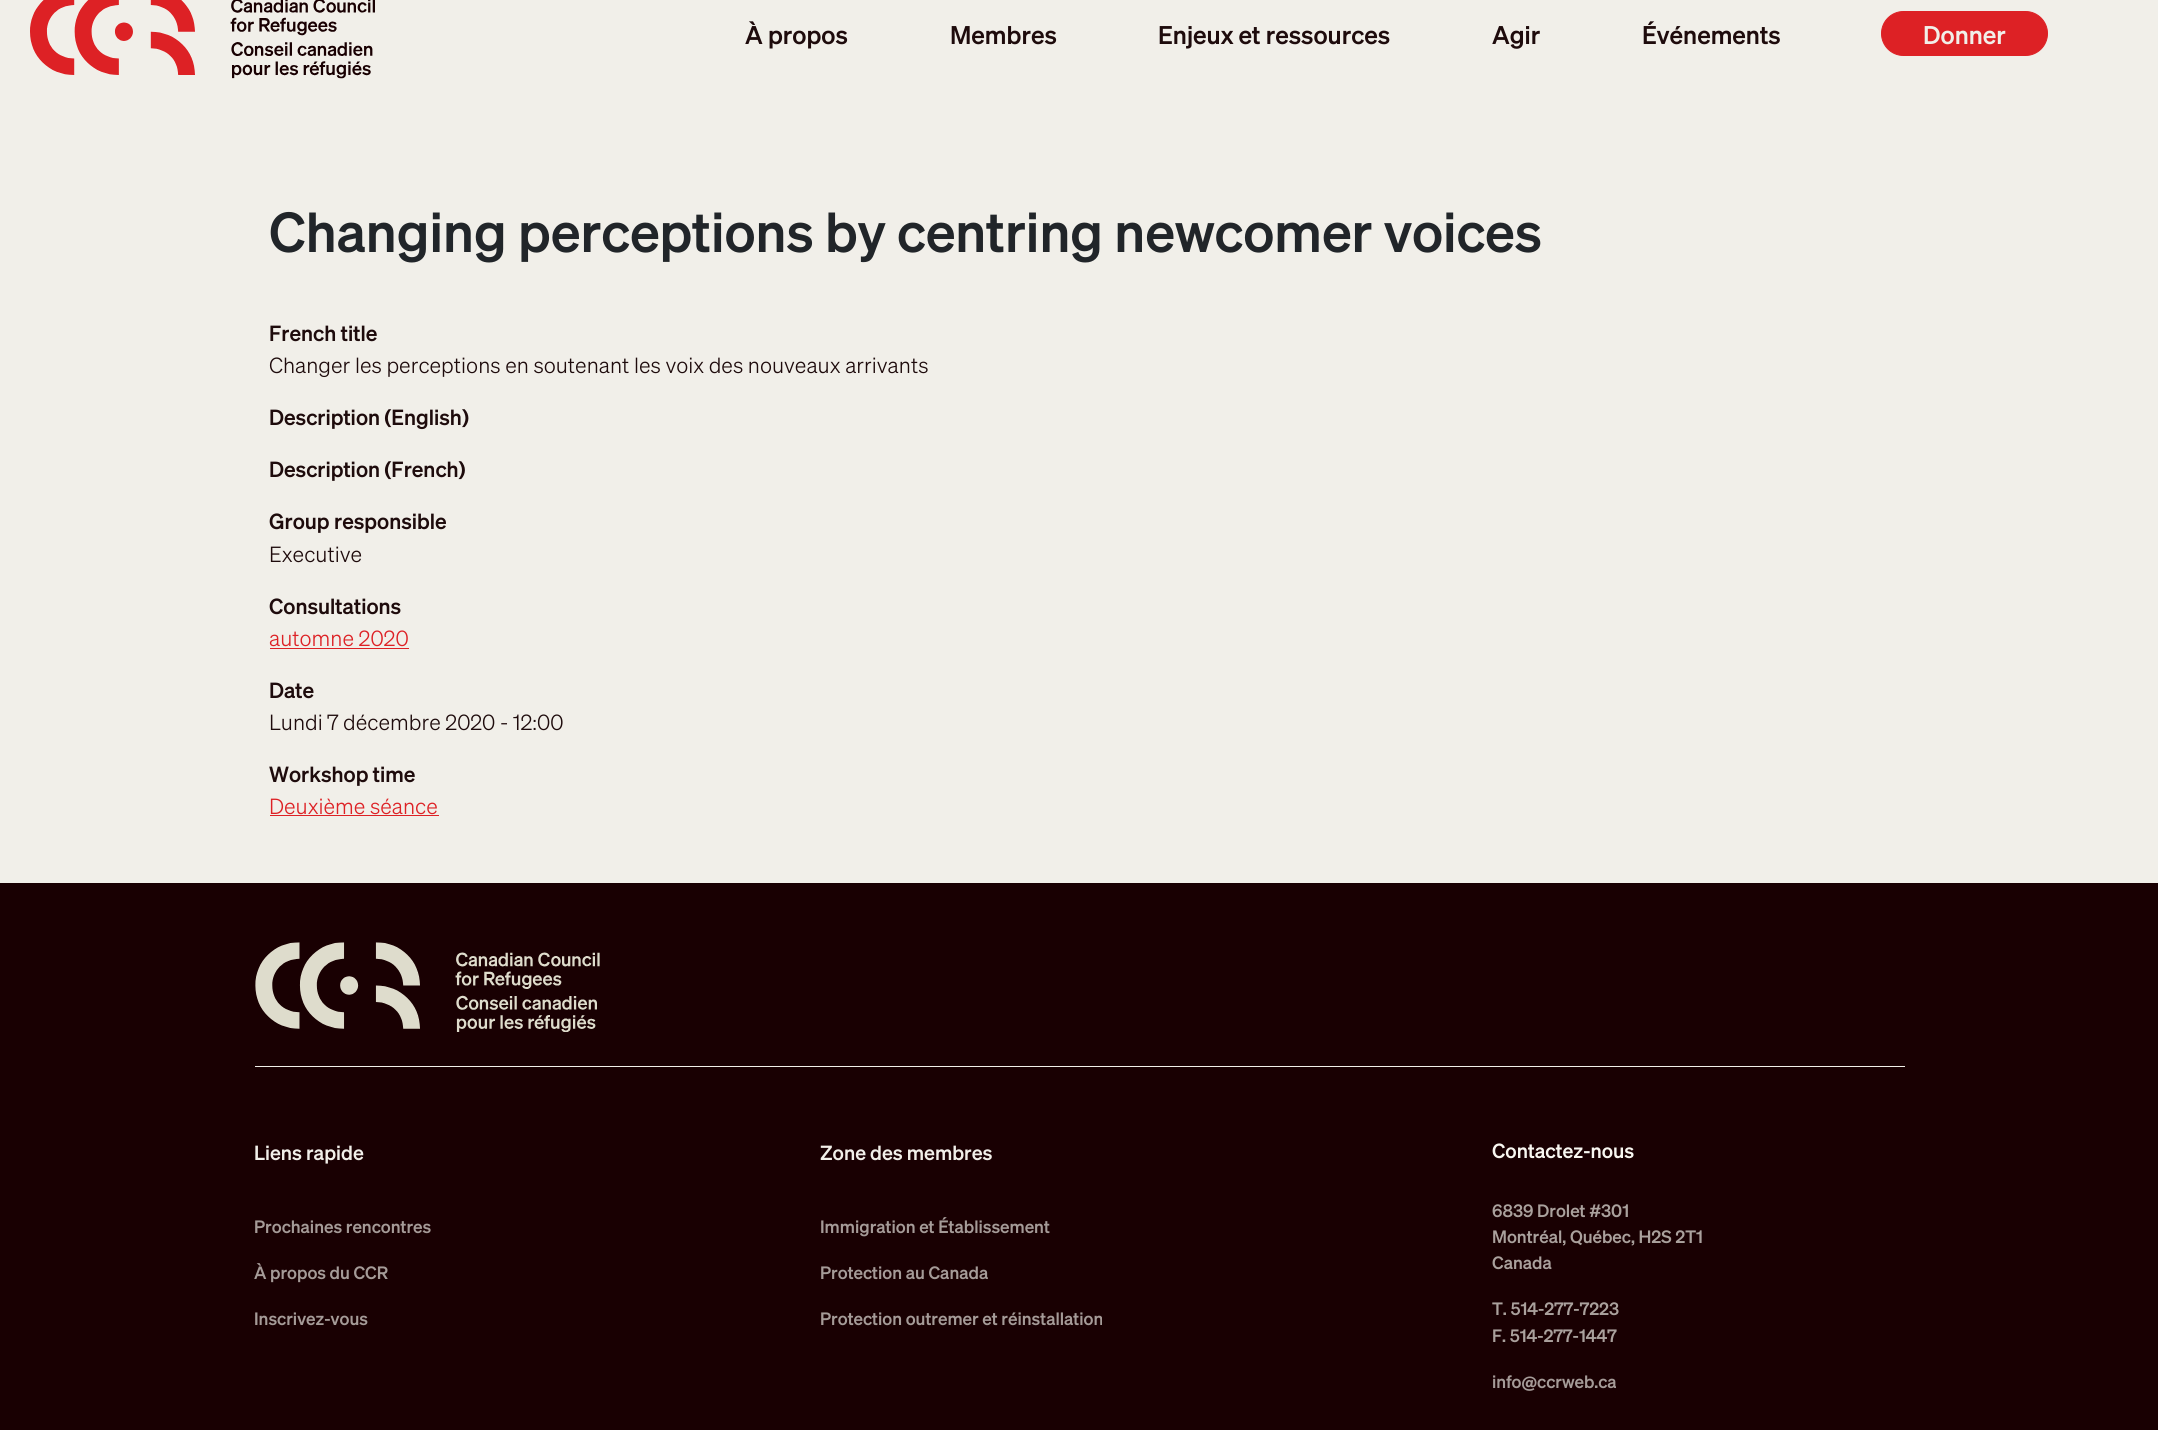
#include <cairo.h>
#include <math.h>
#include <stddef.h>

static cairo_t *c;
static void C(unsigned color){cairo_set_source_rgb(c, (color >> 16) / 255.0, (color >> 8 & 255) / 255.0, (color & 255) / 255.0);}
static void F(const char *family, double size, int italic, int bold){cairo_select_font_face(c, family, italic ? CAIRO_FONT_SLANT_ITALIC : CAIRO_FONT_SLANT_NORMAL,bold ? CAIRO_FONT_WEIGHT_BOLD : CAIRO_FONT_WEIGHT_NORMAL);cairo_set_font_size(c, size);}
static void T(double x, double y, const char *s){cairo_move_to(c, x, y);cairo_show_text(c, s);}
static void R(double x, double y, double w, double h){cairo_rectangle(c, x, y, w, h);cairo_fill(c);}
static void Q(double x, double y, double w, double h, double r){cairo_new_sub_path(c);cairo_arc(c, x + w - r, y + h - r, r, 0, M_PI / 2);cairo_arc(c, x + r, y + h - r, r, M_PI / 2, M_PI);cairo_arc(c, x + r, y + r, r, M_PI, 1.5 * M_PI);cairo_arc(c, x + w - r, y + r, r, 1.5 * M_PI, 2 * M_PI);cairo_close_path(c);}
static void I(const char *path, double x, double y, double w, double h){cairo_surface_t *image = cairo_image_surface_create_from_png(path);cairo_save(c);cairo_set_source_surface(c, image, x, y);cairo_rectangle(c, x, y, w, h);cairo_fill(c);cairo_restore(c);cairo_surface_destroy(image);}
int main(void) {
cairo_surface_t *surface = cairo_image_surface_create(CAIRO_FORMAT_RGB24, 2158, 1430);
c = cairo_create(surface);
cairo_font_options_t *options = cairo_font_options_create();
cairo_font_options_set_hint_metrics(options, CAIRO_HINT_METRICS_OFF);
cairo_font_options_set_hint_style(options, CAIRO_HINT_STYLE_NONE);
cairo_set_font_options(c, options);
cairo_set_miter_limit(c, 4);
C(0xf1efe9);
cairo_paint(c);
I("1.png",30,0,345,79);
F("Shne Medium",25,0,0);
C(0x1e0b0c);
T(745,44,"À propos");
T(950,44,"Membres");
T(1158,44,"Enjeux et ressources");
T(1492,44,"Agir");
T(1642,44,"Événements");
C(0xdd2125);
Q(1881.5,11.5,166,44,22);
cairo_fill_preserve(c);
cairo_set_line_width(c,1);
cairo_stroke(c);
C(0xf1efe9);
T(1923,44,"Donner");
F("Shne Medium",55,0,0);
C(0x212529);
T(269,252,"Changing perceptions by centring newcomer voices");
F("Shne Medium",21.4,0,0);
C(0x1e0b0c);
T(269,341,"French title");
F("Shne Light",21.4,0,0);
T(269,373,"Changer les perceptions en soutenant les voix des nouveaux arrivants");
F("Shne Medium",21.4,0,0);
T(269,425,"Description (English)");
T(269,477,"Description (French)");
T(269,529,"Group responsible");
F("Shne Light",21.4,0,0);
T(269,562,"Executive");
F("Shne Medium",21.4,0,0);
T(269,614,"Consultations");
F("Shne Light",21.4,0,0);
C(0xdd2125);
T(269,646,"automne 2020");
R(270,648,139,1);
F("Shne Medium",21.4,0,0);
C(0x1e0b0c);
T(269,698,"Date");
F("Shne Light",21.4,0,0);
T(269,730,"Lundi 7 décembre 2020 - 12:00");
F("Shne Medium",21.4,0,0);
T(269,782,"Workshop time");
F("Shne Light",21.4,0,0);
C(0xdd2125);
T(269,814,"Deuxième séance");
R(270,815,169,1);
C(0x190002);
R(0,883,2158,547);
C(0xf1efe9);
R(255,1066,1650,1);
I("2.png",255,942,345,90);
F("Shne Medium",20,0,0);
T(254,1160,"Liens rapide");
F("Shne Medium",17.5,0,0);
C(0xa59b98);
T(254,1233,"Prochaines rencontres");
T(254,1279,"À propos du CCR");
T(254,1325,"Inscrivez-vous");
F("Shne Medium",20,0,0);
C(0xf1efe9);
T(820,1160,"Zone des membres");
F("Shne Medium",17.5,0,0);
C(0xa59b98);
T(820,1233,"Immigration et Établissement");
T(820,1279,"Protection au Canada");
T(820,1325,"Protection outremer et réinstallation");
F("Shne Medium",20,0,0);
C(0xf8f7f1);
T(1492,1158,"Contactez-nous");
F("Shne Medium",17.5,0,0);
C(0xaaa19d);
T(1492,1217,"6839 Drolet #301");
T(1492,1243,"Montréal, Québec, H2S 2T1");
T(1492,1269,"Canada");
T(1492,1315,"T. 514-277-7223");
T(1492,1342,"F. 514-277-1447");
C(0xa59b98);
T(1492,1388,"info@ccrweb.ca");
cairo_surface_write_to_png(surface, "o.png");
cairo_font_options_destroy(options);
cairo_destroy(c);
cairo_surface_destroy(surface);
return 0;
}
